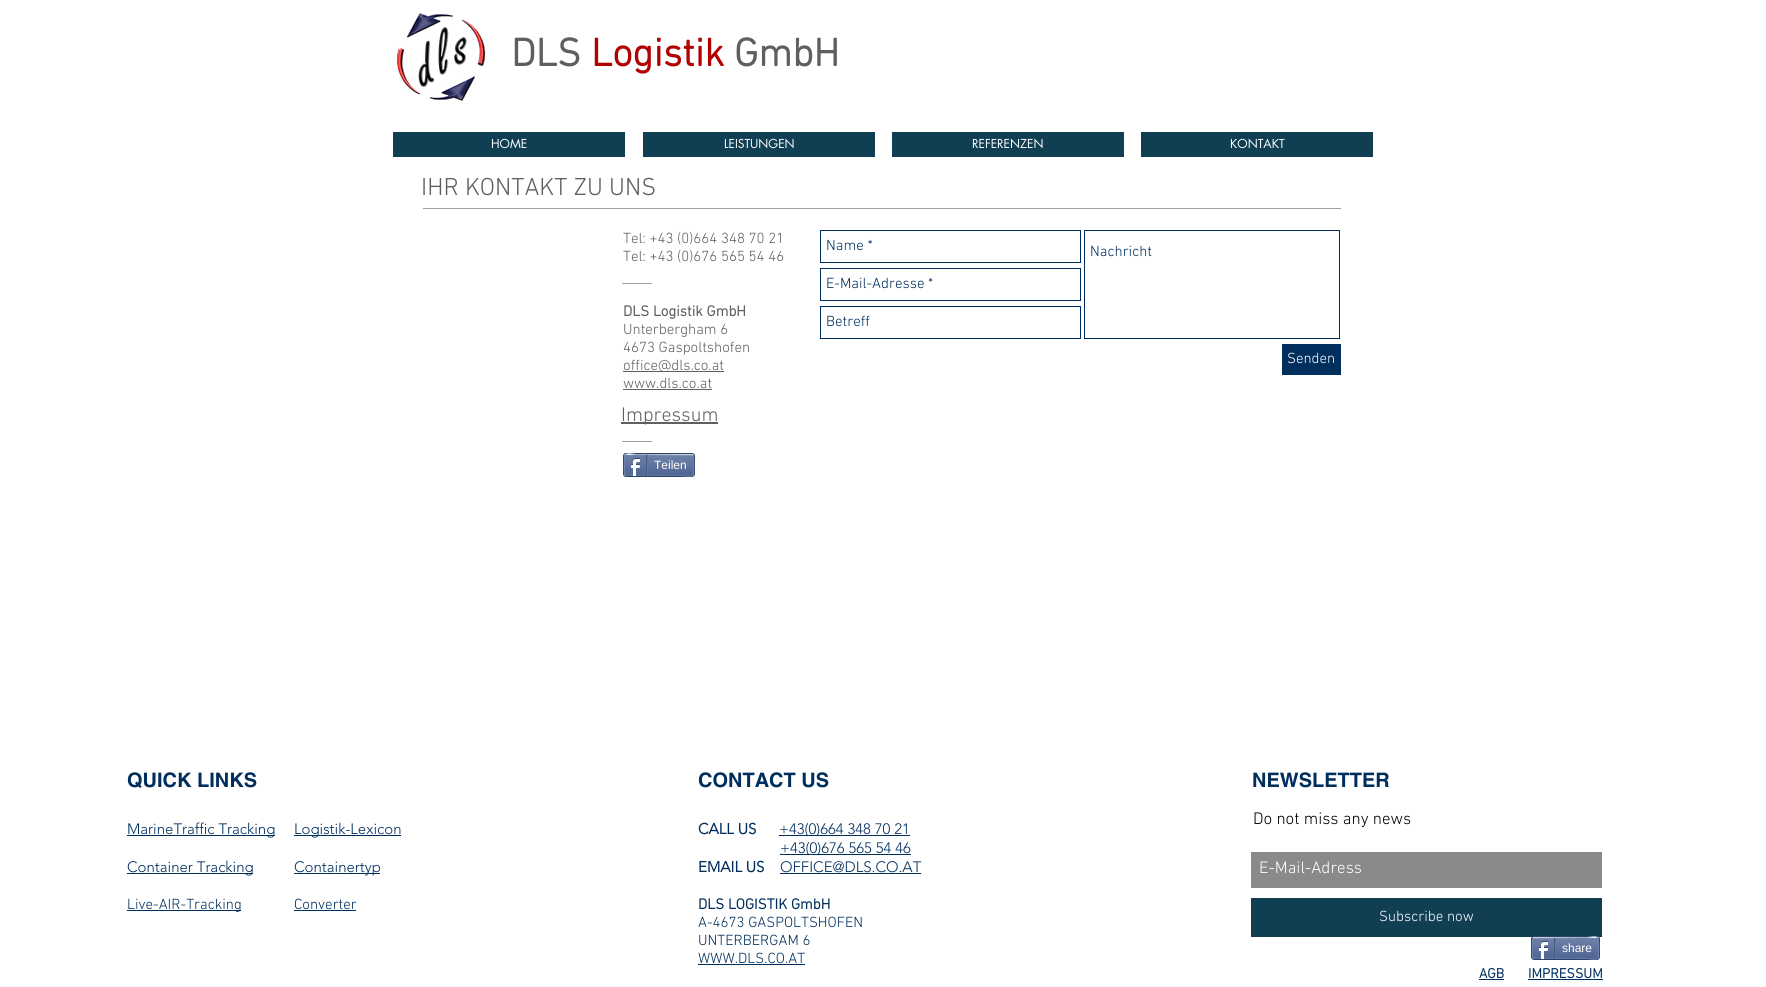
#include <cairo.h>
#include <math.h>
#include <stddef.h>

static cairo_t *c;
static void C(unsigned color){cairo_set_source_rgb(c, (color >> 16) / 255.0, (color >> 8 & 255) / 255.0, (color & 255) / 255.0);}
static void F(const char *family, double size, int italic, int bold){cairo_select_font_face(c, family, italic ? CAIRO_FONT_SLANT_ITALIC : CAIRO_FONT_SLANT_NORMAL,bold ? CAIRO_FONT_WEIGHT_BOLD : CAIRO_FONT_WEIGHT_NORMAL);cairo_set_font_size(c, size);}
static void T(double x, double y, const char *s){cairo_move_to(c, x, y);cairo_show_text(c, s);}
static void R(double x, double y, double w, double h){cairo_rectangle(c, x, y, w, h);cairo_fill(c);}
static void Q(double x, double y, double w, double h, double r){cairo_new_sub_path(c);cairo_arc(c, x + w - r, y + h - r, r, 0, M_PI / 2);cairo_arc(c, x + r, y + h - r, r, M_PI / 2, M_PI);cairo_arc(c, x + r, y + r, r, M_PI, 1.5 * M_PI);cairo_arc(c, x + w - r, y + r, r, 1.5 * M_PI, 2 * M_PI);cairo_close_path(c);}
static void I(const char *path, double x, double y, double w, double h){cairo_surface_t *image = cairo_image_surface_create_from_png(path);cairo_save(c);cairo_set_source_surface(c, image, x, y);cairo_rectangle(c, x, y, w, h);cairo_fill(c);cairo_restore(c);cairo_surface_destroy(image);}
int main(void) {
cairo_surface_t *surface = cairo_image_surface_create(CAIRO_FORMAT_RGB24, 1766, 987);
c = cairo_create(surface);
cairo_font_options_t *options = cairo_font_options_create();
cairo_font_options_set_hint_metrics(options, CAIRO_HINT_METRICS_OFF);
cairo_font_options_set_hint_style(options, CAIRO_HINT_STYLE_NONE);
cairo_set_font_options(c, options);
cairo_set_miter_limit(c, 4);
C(0xffffff);
cairo_paint(c);
I("1.png",396,13,90,88);
F("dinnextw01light",40,0,1);
C(0x605e5e);
T(511,66,"DLS");
C(0xb30000);
T(591,66,"Logistik");
C(0x605e5e);
T(734,66,"GmbH");
C(0x103f54);
R(393,132,232,25);
F("futura",12,0,0);
C(0xffffff);
T(491,148,"HOME");
C(0x103f54);
R(643,132,232,25);
C(0xffffff);
T(724,148,"LEISTUNGEN");
C(0x103f54);
R(892,132,232,25);
C(0xffffff);
T(972,148,"REFERENZEN");
C(0x103f54);
R(1141,132,232,25);
C(0xffffff);
T(1230,148,"KONTAKT");
F("dinnextw01light Light",25,0,0);
C(0x605e5e);
T(421,195,"IHR KONTAKT ZU UNS");
C(0xa0a09f);
R(423,208,918,1);
F("dinnextw01light Light",15,0,0);
C(0x605e5e);
T(623,243,"Tel: +43 (0)664 348 70 21");
T(623,261,"Tel: +43 (0)676 565 54 46");
cairo_rectangle(c,820.5,230.5,260,32);
C(0x002e5d);
cairo_set_line_width(c,1);
cairo_stroke(c);
T(826,250,"Name *");
cairo_rectangle(c,1084.5,230.5,255,108);
cairo_stroke(c);
T(1090,256,"Nachricht");
cairo_rectangle(c,820.5,268.5,260,32);
cairo_stroke(c);
T(826,288,"E-Mail-Adresse *");
cairo_rectangle(c,820.5,306.5,260,32);
cairo_stroke(c);
T(826,326,"Betreff");
R(1282,344,59,31);
C(0xffffff);
T(1287,363,"Senden");
C(0xa0a09f);
R(622,283,30,1);
F("dinnextw01light",15,0,1);
C(0x605e5e);
T(623,316,"DLS Logistik GmbH");
F("dinnextw01light Light",15,0,0);
T(623,334,"Unterbergham 6");
T(623,352,"4673 Gaspoltshofen");
R(623,371,101,1);
T(623,370,"office@dls.co.at");
T(623,388,"www.dls.co.at");
R(623,389,89,1);
R(621,422,97,2);
F("dinnextw01light Light",20,0,0);
T(621,421,"Impressum");
C(0xa0a09f);
R(622,441,30,1);
Q(623.5,453.5,71,23,2.5);
C(0x2d4565);
cairo_stroke(c);
I("2.png",624,455,70,21);
cairo_new_path(c);
cairo_move_to(c,625,455);
cairo_curve_to(c,628,452,633,454.5,637,454.5);
cairo_line_to(c,693,455);
C(0x9aabc6);
cairo_stroke(c);
cairo_new_path(c);
cairo_move_to(c,693,455);
cairo_curve_to(c,694,455.5,694,474.5,693,475);
C(0x6f83ad);
cairo_stroke(c);
cairo_new_path(c);
cairo_move_to(c,693,475);
cairo_curve_to(c,690,478,685,475.5,681,475.5);
cairo_line_to(c,625,475);
C(0x6176a3);
cairo_stroke(c);
cairo_new_path(c);
cairo_move_to(c,625,475);
cairo_curve_to(c,624,474.5,624,455.5,625,455);
C(0x6f83ad);
cairo_stroke(c);
I("3.png",630,458,10,18);
C(0x425e85);
R(646,455,1,21);
F("Liberation Sans",12,0,0);
C(0xffffff);
T(654,469,"Teilen");
C(0x6176a3);
R(647,455,1,20);
F("helvetica",20,0,1);
C(0x002e5d);
T(127,787,"QUICK LINKS");
R(127,835,148,1);
F("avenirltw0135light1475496 Light",15,0,0);
T(127,834,"MarineTraffic Tracking");
R(127,873,126,1);
T(127,872,"Container Tracking");
R(127,910,114,1);
F("dinnextw01light Light",15,0,0);
T(127,909,"Live-AIR-Tracking");
R(294,835,107,1);
F("avenirltw0135light1475496 Light",15,0,0);
T(294,834,"Logistik-Lexicon");
R(294,873,86,1);
T(294,872,"Containertyp");
F("dinnextw01light Light",15,0,0);
T(294,909,"Converter");
R(294,910,62,1);
F("helvetica",20,0,1);
T(698,787,"CONTACT US");
F("avenirltw0135light1475496",15,0,1);
T(698,834,"CALL US");
R(779,835,131,1);
F("avenirltw0135light1475496 Light",15,0,0);
T(779,834,"+43(0)664 348 70 21");
R(780,854,131,1);
T(780,853,"+43(0)676 565 54 46");
F("avenirltw0135light1475496",15,0,1);
T(698,872,"EMAIL US");
F("avenirltw0135light1475496 Light",15,0,0);
T(780,872,"OFFICE@DLS.CO.AT");
R(780,873,141,1);
F("dinnextw01light",15,0,1);
T(698,909,"DLS LOGISTIK GmbH");
F("dinnextw01light Light",15,0,0);
T(698,927,"A-4673 GASPOLTSHOFEN");
T(698,945,"UNTERBERGAM 6");
T(698,963,"WWW.DLS.CO.AT");
R(698,964,107,1);
F("helvetica",20,0,1);
T(1252,787,"NEWSLETTER");
F("dinnextw01light Light",17,0,0);
C(0x000000);
T(1253,824,"Do not miss any news");
C(0x8a8a8a);
R(1251,852,351,36);
C(0xffffff);
T(1259,873,"E-Mail-Adress");
C(0x103f54);
R(1251,898,351,39);
F("dinnextw01light Light",15,0,0);
C(0xffffff);
T(1379,921,"Subscribe now");
Q(1531.5,936.5,68,23,2.5);
C(0x2d4565);
cairo_stroke(c);
I("4.png",1532,938,67,21);
cairo_new_path(c);
cairo_move_to(c,1533,938);
cairo_line_to(c,1586.5,937.5);
cairo_curve_to(c,1590.5,937.5,1595.5,935,1598,938);
C(0x9aabc6);
cairo_stroke(c);
cairo_new_path(c);
cairo_move_to(c,1598,938);
cairo_curve_to(c,1599,938.5,1599,957.5,1598,958);
C(0x6f83ad);
cairo_stroke(c);
cairo_new_path(c);
cairo_move_to(c,1598,958);
cairo_curve_to(c,1595.5,961,1590.5,958.5,1586.5,958.5);
cairo_line_to(c,1533,958);
C(0x6176a3);
cairo_stroke(c);
cairo_new_path(c);
cairo_move_to(c,1533,958);
cairo_curve_to(c,1532,957.5,1532,938.5,1533,938);
C(0x6f83ad);
cairo_stroke(c);
I("5.png",1538,941,10,18);
C(0x425e85);
R(1554,938,1,21);
F("Liberation Sans",12,0,0);
C(0xffffff);
T(1562,952,"share");
C(0x6176a3);
R(1555,938,1,20);
F("dinnextw01light",14,0,1);
C(0x002e5d);
T(1479,978,"AGB");
R(1479,979,25,1);
T(1528,978,"IMPRESSUM");
R(1528,979,75,1);
cairo_surface_write_to_png(surface, "o.png");
cairo_font_options_destroy(options);
cairo_destroy(c);
cairo_surface_destroy(surface);
return 0;
}
